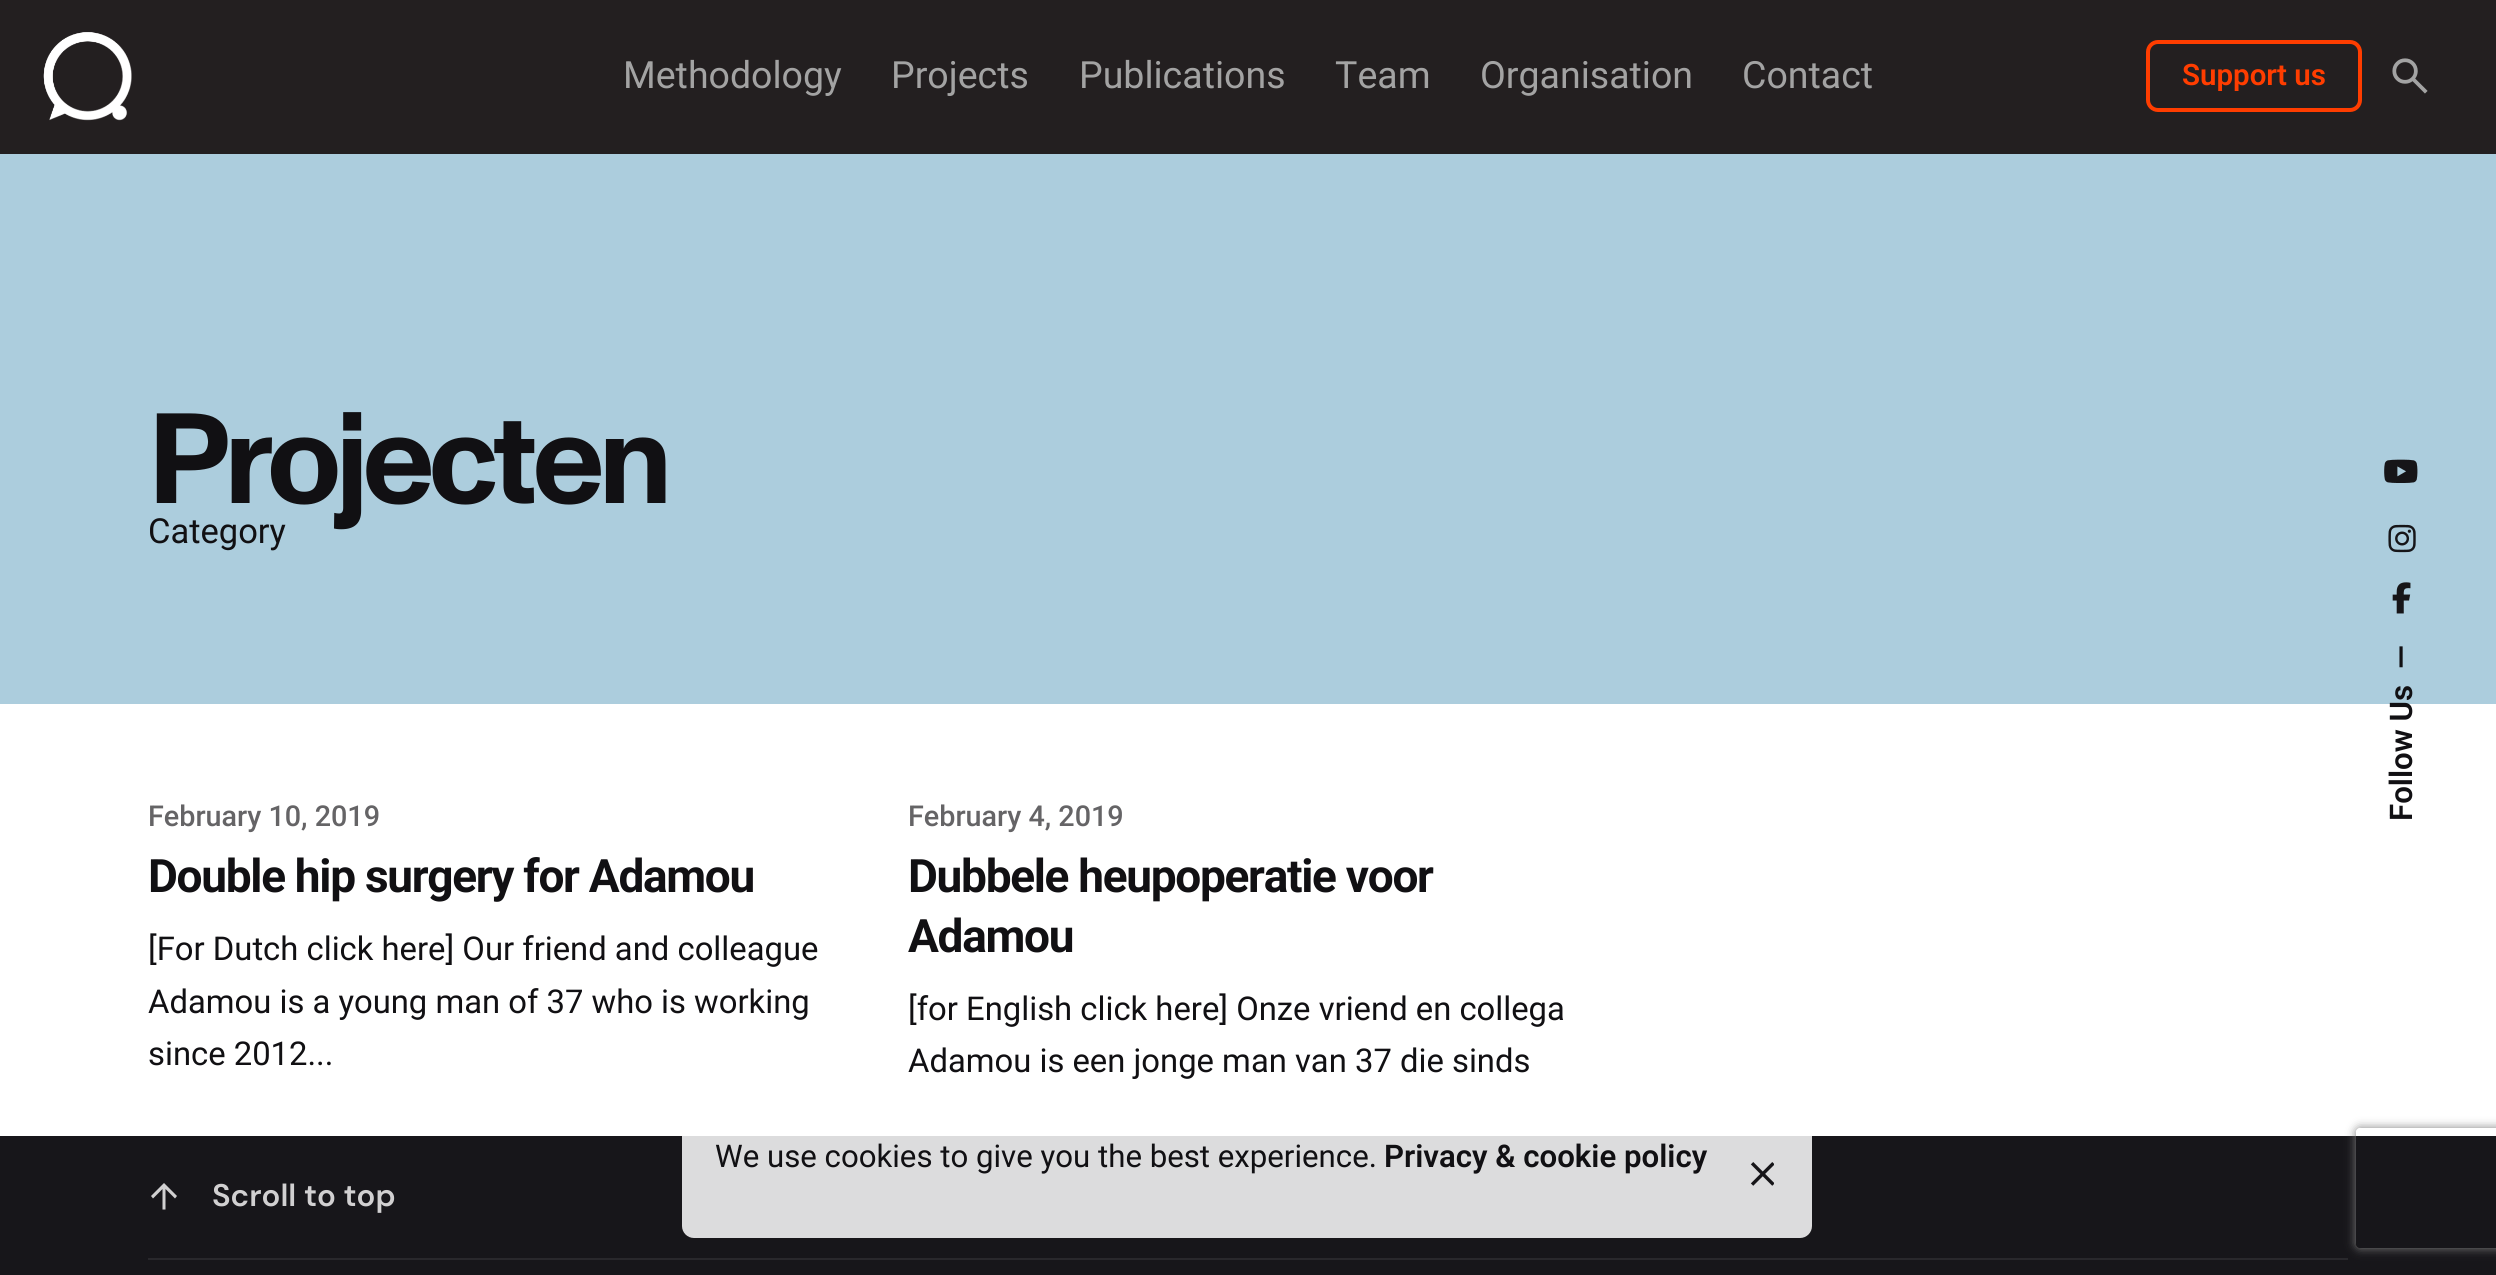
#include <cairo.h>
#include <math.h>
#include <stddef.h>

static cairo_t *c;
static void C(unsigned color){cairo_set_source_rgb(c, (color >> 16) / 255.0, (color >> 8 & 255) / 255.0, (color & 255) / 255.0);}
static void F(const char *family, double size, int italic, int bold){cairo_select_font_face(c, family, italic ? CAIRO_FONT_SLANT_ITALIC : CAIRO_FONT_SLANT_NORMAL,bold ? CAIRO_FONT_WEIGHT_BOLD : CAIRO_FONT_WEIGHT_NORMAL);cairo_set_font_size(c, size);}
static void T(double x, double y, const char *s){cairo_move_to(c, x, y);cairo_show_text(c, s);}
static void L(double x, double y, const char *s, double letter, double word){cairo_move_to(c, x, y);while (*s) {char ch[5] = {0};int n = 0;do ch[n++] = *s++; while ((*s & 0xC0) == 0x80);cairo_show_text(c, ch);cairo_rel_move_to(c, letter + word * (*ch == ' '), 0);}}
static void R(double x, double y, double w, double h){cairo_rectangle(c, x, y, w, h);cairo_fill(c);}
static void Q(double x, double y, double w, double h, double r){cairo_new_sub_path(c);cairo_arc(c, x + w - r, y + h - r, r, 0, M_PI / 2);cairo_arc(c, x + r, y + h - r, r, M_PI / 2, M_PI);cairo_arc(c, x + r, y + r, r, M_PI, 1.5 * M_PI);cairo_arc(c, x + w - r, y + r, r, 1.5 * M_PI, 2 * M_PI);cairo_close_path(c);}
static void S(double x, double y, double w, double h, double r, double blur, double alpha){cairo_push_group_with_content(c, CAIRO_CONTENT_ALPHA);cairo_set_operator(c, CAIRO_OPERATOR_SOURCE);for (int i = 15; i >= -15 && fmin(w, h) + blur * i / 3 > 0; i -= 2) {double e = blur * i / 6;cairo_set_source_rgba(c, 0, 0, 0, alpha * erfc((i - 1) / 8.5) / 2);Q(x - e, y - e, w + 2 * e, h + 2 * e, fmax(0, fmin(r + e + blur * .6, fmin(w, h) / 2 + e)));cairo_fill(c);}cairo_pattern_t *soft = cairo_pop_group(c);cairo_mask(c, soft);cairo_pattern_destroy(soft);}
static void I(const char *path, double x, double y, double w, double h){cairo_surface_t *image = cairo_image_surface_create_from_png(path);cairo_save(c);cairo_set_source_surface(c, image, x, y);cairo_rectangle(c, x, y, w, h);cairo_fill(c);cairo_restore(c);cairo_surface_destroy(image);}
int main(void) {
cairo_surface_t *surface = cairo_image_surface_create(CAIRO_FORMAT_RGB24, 2496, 1275);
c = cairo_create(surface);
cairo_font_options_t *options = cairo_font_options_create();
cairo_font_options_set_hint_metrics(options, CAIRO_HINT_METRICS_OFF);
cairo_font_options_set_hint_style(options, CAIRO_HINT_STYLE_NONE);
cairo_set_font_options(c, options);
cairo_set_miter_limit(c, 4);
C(0xffffff);
cairo_paint(c);
C(0x231f20);
R(0,0,2496,154);
I("1.png",43,32,89,89);
F("Roboto",37.5,0,0);
C(0xa3a3a3);
T(623,88,"Methodology");
T(891,88,"Projects");
T(1079,88,"Publications");
T(1335,88,"Team");
T(1480,88,"Organisation");
T(1742,88,"Contact");
Q(2148,42,212,68,10);
C(0xff3d00);
cairo_set_line_width(c,4);
cairo_stroke(c);
F("Roboto SemiBold",29.5,0,0);
T(2182,85,"Support us");
I("2.png",2392,58,36,36);
C(0xaccddd);
R(0,154,2496,550);
F("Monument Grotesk",128,0,1);
C(0x111013);
L(148,503,"Projecten",-5.75,0);
F("Roboto",34.5,0,0);
T(148,543,"Category");
F("Roboto Medium",28.75,0,0);
C(0x656466);
T(148,826,"February 10, 2019");
F("Roboto",46,0,1);
C(0x111013);
L(148,892,"Double hip surgery for Adamou",-1.3,0);
F("Roboto",32.8,0,0);
T(148,960,"[For Dutch click here] Our friend and colleague");
T(148,1013,"Adamou is a young man of 37 who is working");
T(148,1065,"since 2012...");
F("Roboto Medium",28.75,0,0);
C(0x656466);
T(908,826,"February 4, 2019");
F("Roboto",46,0,1);
C(0x111013);
L(908,892,"Dubbele heupoperatie voor",-1.3,0);
L(908,952,"Adamou",-1.3,0);
F("Roboto",32.8,0,0);
T(908,1020,"[for English click here] Onze vriend en collega");
T(908,1072,"Adamou is een jonge man van 37 die sinds");
I("3.png",2384,459,34,24);
I("4.png",2388,524,28,29);
I("5.png",2392,582,19,32);
F("Roboto SemiBold",31.2,0,0);
cairo_save(c);
cairo_translate(c,2412,669);
cairo_rotate(c,-90 * M_PI / 180);
T(0,0,"—");
cairo_restore(c);
cairo_save(c);
cairo_translate(c,2412,821);
cairo_rotate(c,-90 * M_PI / 180);
T(0,0,"Follow Us");
cairo_restore(c);
C(0x17161a);
R(0,1136,2496,139);
C(0xd1d0d1);
cairo_new_path(c);
cairo_move_to(c,162.5,1209.5);
cairo_line_to(c,162.5,1189);
cairo_line_to(c,153,1198.5);
cairo_line_to(c,151,1196);
cairo_line_to(c,164,1183);
cairo_line_to(c,177,1196);
cairo_line_to(c,175,1198.5);
cairo_line_to(c,165.5,1189);
cairo_line_to(c,165.5,1209.5);
cairo_close_path(c);
cairo_fill(c);
F("DM Sans SemiBold",31.2,0,0);
T(212,1206,"Scroll to top");
C(0x29282c);
R(148,1258,2200,2);
cairo_save(c);
cairo_set_fill_rule(c,CAIRO_FILL_RULE_EVEN_ODD);
cairo_new_path(c);
cairo_move_to(c,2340,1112);
cairo_line_to(c,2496,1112);
cairo_line_to(c,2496,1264);
cairo_line_to(c,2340,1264);
cairo_close_path(c);
cairo_move_to(c,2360,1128);
cairo_line_to(c,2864,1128);
cairo_curve_to(c,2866,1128,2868,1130,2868,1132);
cairo_line_to(c,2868,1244);
cairo_curve_to(c,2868,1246,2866,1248,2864,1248);
cairo_line_to(c,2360,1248);
cairo_curve_to(c,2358,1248,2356,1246,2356,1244);
cairo_line_to(c,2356,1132);
cairo_curve_to(c,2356,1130,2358,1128,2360,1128);
cairo_close_path(c);
cairo_clip(c);
C(0x808080);
S(2356,1128,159,120,4,5,1);
cairo_restore(c);
cairo_set_source_rgba(c,1,1,1,0.85);
Q(682,1108,1130,130,12);
cairo_fill(c);
F("Roboto",31.2,0,0);
C(0x111013);
T(715,1167,"We use cookies to give you the best experience.");
F("Roboto SemiBold",31.2,0,0);
T(1384,1167,"Privacy & cookie policy");
I("6.png",1750,1162,24,24);
cairo_surface_write_to_png(surface, "o.png");
cairo_font_options_destroy(options);
cairo_destroy(c);
cairo_surface_destroy(surface);
return 0;
}
